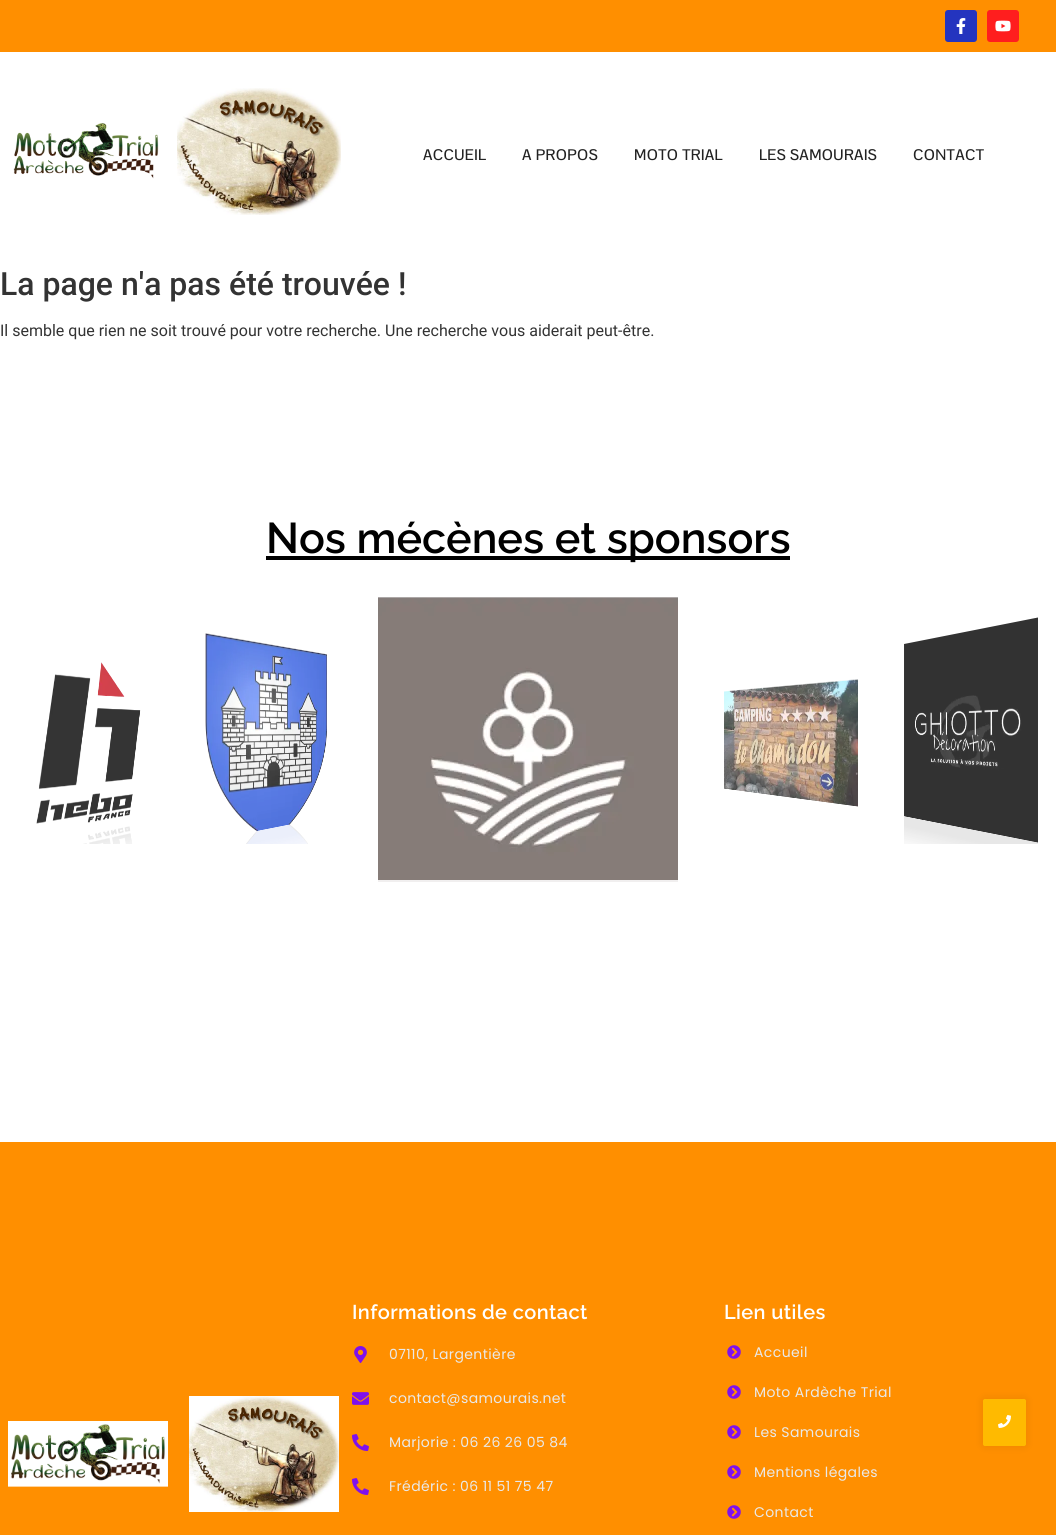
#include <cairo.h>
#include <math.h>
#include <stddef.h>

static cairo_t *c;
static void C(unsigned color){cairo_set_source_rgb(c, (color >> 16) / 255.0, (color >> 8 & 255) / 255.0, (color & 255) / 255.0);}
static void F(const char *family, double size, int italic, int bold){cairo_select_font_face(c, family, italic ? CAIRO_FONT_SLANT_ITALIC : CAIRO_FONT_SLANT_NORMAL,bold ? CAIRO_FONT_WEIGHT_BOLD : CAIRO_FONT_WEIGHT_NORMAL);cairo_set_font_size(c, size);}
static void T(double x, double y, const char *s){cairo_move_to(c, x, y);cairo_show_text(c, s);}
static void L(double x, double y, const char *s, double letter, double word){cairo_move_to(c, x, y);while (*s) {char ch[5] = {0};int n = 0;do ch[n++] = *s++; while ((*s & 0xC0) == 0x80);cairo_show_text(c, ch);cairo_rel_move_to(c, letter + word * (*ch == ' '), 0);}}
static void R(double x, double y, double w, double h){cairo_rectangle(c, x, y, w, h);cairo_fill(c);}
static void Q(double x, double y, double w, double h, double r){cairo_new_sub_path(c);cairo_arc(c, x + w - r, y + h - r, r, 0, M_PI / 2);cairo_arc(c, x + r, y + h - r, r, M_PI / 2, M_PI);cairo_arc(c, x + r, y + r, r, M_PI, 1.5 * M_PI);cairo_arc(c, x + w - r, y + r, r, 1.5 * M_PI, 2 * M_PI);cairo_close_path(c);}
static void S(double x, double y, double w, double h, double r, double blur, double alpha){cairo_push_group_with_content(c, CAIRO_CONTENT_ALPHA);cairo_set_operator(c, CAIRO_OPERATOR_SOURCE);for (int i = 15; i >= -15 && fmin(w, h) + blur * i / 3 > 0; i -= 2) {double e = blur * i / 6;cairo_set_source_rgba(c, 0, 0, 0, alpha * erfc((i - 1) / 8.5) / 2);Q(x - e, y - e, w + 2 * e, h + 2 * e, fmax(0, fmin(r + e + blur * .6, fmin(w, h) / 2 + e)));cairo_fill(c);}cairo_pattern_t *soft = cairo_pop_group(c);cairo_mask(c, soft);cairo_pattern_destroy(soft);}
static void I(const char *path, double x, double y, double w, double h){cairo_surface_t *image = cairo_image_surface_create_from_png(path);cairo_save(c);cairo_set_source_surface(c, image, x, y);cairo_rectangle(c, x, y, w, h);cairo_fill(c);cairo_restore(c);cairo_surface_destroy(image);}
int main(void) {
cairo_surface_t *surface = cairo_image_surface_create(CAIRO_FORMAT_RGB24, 1056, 1535);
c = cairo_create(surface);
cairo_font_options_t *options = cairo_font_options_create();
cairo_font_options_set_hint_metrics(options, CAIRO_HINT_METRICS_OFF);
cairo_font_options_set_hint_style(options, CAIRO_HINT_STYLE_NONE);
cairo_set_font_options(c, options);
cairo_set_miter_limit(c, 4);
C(0xffffff);
cairo_paint(c);
C(0xff8f00);
R(0,0,1056,52);
C(0x2434bf);
Q(945,10,32,32,3);
cairo_fill(c);
I("1.png",956,18,10,16);
C(0xff1e1e);
Q(987,10,32,32,3);
cairo_fill(c);
I("2.png",995,20,16,12);
I("3.png",13,123,146,56);
I("4.png",177,88,164,127);
F("Pontano Sans SemiBold",15,0,0);
C(0x222222);
L(423,160,"ACCUEIL",.4,0);
L(522,160,"A PROPOS",.4,0);
L(634,160,"MOTO TRIAL",.4,0);
L(759,160,"LES SAMOURAIS",.4,0);
L(913,160,"CONTACT",.4,0);
F("Roboto Medium",32,0,0);
C(0x333333);
T(0,295,"La page n'a pas été trouvée !");
F("Roboto",16,0,0);
T(0,336,"Il semble que rien ne soit trouvé pour votre recherche. Une recherche vous aiderait peut-être.");
C(0x000000);
R(266,556,524,4);
F("Raleway SemiBold",43,0,0);
T(266,553,"Nos mécènes et sponsors");
I("5.png",36,662,105,182);
I("6.png",205,633,122,211);
I("7.png",378,597,300,285);
I("8.png",724,679,134,128);
I("9.png",904,617,134,227);
C(0xff8f00);
R(0,1142,1056,393);
I("10.png",8,1421,160,66);
I("11.png",189,1396,150,116);
F("Raleway SemiBold",20,0,0);
C(0xffffff);
L(352,1319,"Informations de contact",.4,0);
I("12.png",354,1346,13,17);
F("Poppins",14,0,0);
C(0xe9e9e9);
L(389,1359,"07110, Largentière",.4,0);
I("13.png",352,1392,17,13);
L(389,1403,"contact@samourais.net",.4,0);
I("14.png",352,1434,17,17);
L(389,1447,"Marjorie : 06 26 26 05 84",.4,0);
I("14.png",352,1478,17,17);
L(389,1491,"Frédéric : 06 11 51 75 47",.4,0);
F("Raleway SemiBold",20,0,0);
C(0xffffff);
L(724,1319,"Lien utiles",.4,0);
I("15.png",727,1345,14,14);
F("Poppins",14,0,0);
C(0xe9e9e9);
L(754,1357,"Accueil",.4,0);
I("15.png",727,1385,14,14);
L(754,1397,"Moto Ardèche Trial",.4,0);
I("15.png",727,1425,14,14);
L(754,1437,"Les Samourais",.4,0);
I("15.png",727,1465,14,14);
L(754,1477,"Mentions légales",.4,0);
I("15.png",727,1505,14,14);
L(754,1517,"Contact",.4,0);
C(0x000000);
S(983,1399,43,47,2,5,.08);
C(0xffba00);
Q(983.5,1399.5,42,46,1.5);
cairo_fill_preserve(c);
cairo_set_line_width(c,1);
cairo_stroke(c);
I("16.png",998,1415,13,13);
cairo_surface_write_to_png(surface, "o.png");
cairo_font_options_destroy(options);
cairo_destroy(c);
cairo_surface_destroy(surface);
return 0;
}
